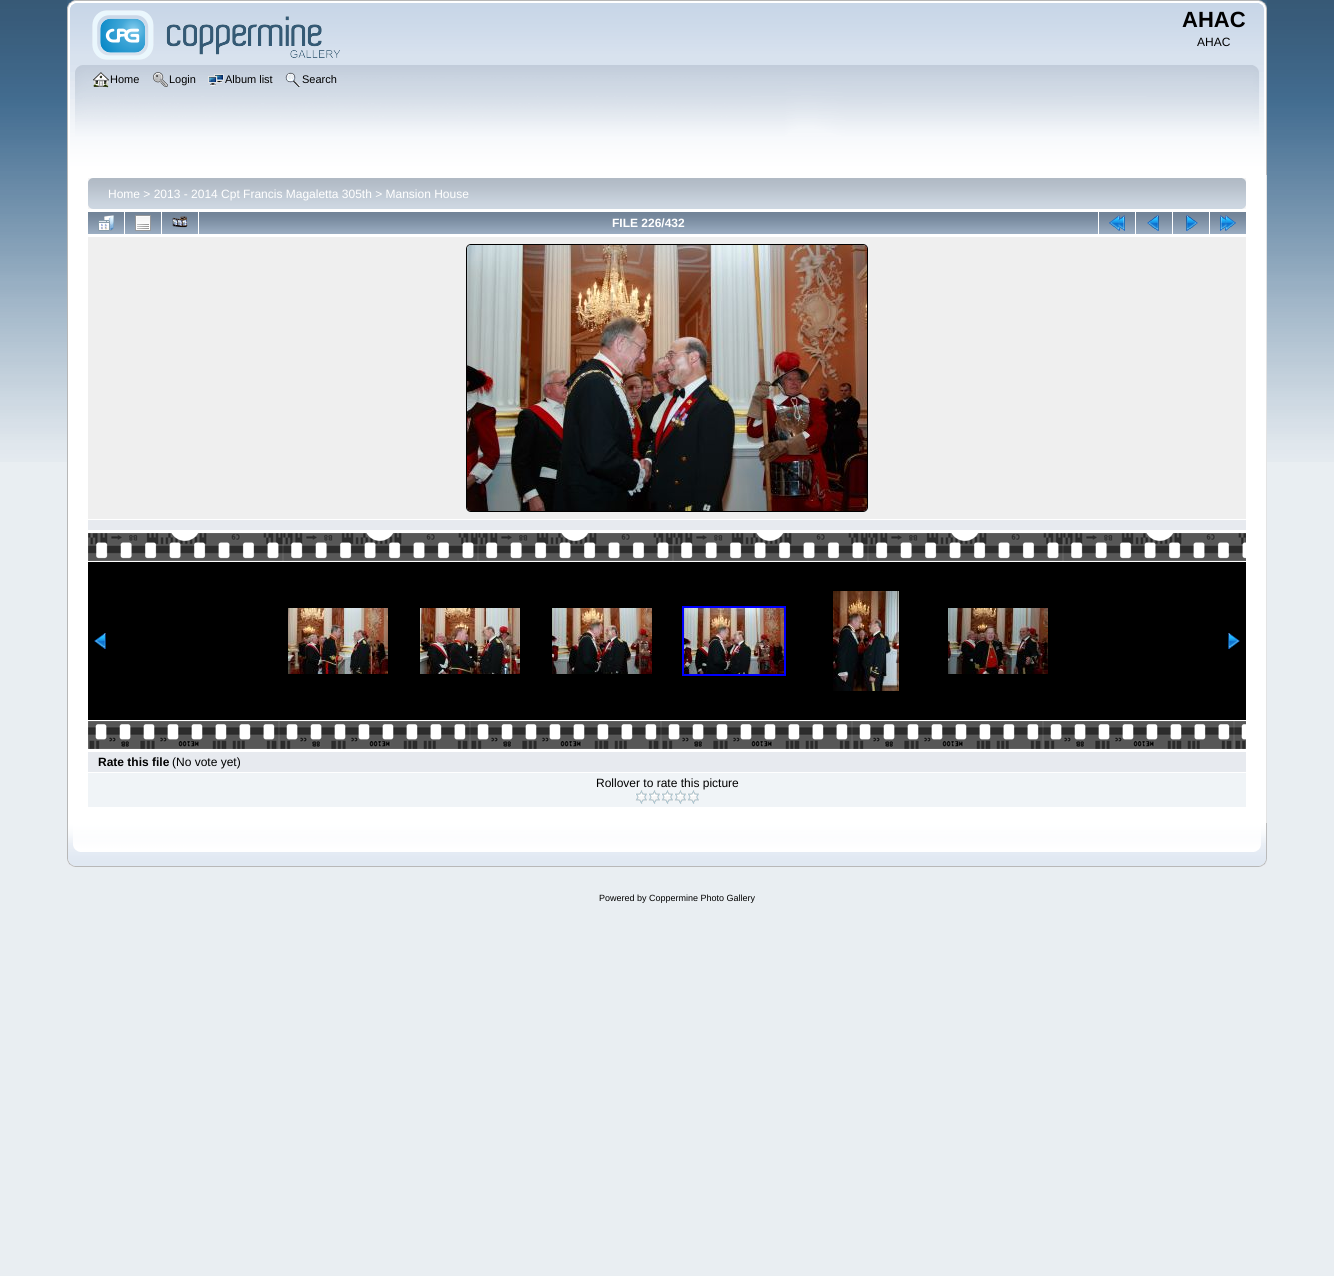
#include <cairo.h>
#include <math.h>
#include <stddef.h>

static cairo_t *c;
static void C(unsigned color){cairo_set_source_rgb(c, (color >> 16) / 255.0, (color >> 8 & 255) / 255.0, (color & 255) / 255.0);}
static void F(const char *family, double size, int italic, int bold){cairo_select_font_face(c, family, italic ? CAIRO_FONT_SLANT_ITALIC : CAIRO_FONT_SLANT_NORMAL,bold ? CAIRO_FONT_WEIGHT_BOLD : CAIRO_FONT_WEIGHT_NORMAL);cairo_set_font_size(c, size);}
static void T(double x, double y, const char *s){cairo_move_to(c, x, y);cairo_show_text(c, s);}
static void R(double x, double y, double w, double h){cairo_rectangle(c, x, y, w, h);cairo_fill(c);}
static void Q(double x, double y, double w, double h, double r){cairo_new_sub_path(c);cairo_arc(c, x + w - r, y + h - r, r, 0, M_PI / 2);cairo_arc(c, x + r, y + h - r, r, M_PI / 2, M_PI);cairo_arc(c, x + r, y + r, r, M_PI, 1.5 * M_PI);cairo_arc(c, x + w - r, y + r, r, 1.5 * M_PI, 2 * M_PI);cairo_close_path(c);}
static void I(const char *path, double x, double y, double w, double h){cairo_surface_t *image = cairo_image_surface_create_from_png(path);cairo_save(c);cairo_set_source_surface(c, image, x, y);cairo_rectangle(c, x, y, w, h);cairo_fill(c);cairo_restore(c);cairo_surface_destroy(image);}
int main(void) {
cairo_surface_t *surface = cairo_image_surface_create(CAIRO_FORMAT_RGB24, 1334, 1276);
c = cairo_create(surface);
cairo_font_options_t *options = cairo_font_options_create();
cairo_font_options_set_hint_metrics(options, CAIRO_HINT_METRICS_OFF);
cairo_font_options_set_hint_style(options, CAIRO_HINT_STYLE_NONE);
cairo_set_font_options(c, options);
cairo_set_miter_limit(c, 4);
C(0xe9eef2);
cairo_paint(c);
I("1.png",0,0,1334,462);
I("2.png",67,0,1192,65);
I("3.png",1259,0,8,65);
I("4.png",92,10,248,50);
F("Liberation Sans",22,0,1);
C(0x000000);
T(1182,27,"AHAC");
F("Liberation Sans",12,0,0);
T(1197,46,"AHAC");
I("5.png",67,65,1186,110);
I("6.png",1253,65,14,110);
I("7.png",93,72,16,16);
F("Liberation Sans",11,0,0);
T(110,83,"Home");
I("8.png",153,72,15,15);
T(169,83,"Login");
I("9.png",208,74,16,12);
T(225,83,"Album list");
I("10.png",285,72,16,15);
T(302,83,"Search");
C(0xffffff);
R(68,175,1198,648);
C(0xb7b7b7);
R(67,175,1,648);
C(0xe4e4e4);
R(1266,175,1,648);
I("11.png",88,178,1154,31);
I("12.png",1242,178,4,31);
F("Liberation Sans",12,0,0);
C(0xffffff);
T(108,198,"Home > 2013 - 2014 Cpt Francis Magaletta 305th > Mansion House");
I("13.png",88,212,36,22);
I("14.png",98,215,16,16);
I("13.png",125,212,36,22);
I("15.png",135,215,16,16);
I("13.png",162,212,36,22);
I("16.png",172,216,16,12);
I("17.png",199,212,899,22);
F("Liberation Sans",12,0,1);
T(612,227,"FILE 226/432");
I("13.png",1099,212,36,22);
I("18.png",1109,215,16,16);
I("13.png",1136,212,36,22);
I("19.png",1147,215,12,16);
I("13.png",1173,212,36,22);
I("20.png",1186,215,12,16);
I("13.png",1210,212,36,22);
I("21.png",1220,215,16,16);
C(0xefefef);
R(88,237,1158,282);
Q(466.5,244.5,401,267,4.5);
C(0x000000);
cairo_set_line_width(c,1);
cairo_stroke(c);
I("22.png",467,245,400,266);
C(0xe7eaef);
R(88,520,1158,10);
I("23.png",88,533,1158,28);
C(0x000000);
R(88,562,1158,158);
I("24.png",94,633,12,16);
I("25.png",288,608,100,66);
I("26.png",420,608,100,66);
I("27.png",552,608,100,66);
cairo_rectangle(c,683,607,102,68);
C(0x0000ff);
cairo_set_line_width(c,2);
cairo_stroke(c);
I("28.png",684,608,100,66);
I("29.png",833,591,66,100);
I("30.png",948,608,100,66);
I("31.png",1228,633,12,16);
I("32.png",88,721,1158,28);
C(0xe7eaef);
R(88,752,1158,20);
C(0x000000);
T(98,766,"Rate this file");
F("Liberation Sans",12,0,0);
T(172,766,"(No vote yet)");
C(0xf0f4f7);
R(88,773,1158,34);
C(0x000000);
T(596,787,"Rollover to rate this picture");
I("33.png",635,790,13,14);
I("33.png",648,790,13,14);
I("33.png",661,790,13,14);
I("33.png",674,790,13,14);
I("33.png",687,790,13,14);
I("34.png",67,823,1187,44);
I("35.png",1254,823,13,44);
F("Liberation Sans",9,0,0);
T(599,901,"Powered by Coppermine Photo Gallery");
cairo_surface_write_to_png(surface, "o.png");
cairo_font_options_destroy(options);
cairo_destroy(c);
cairo_surface_destroy(surface);
return 0;
}
